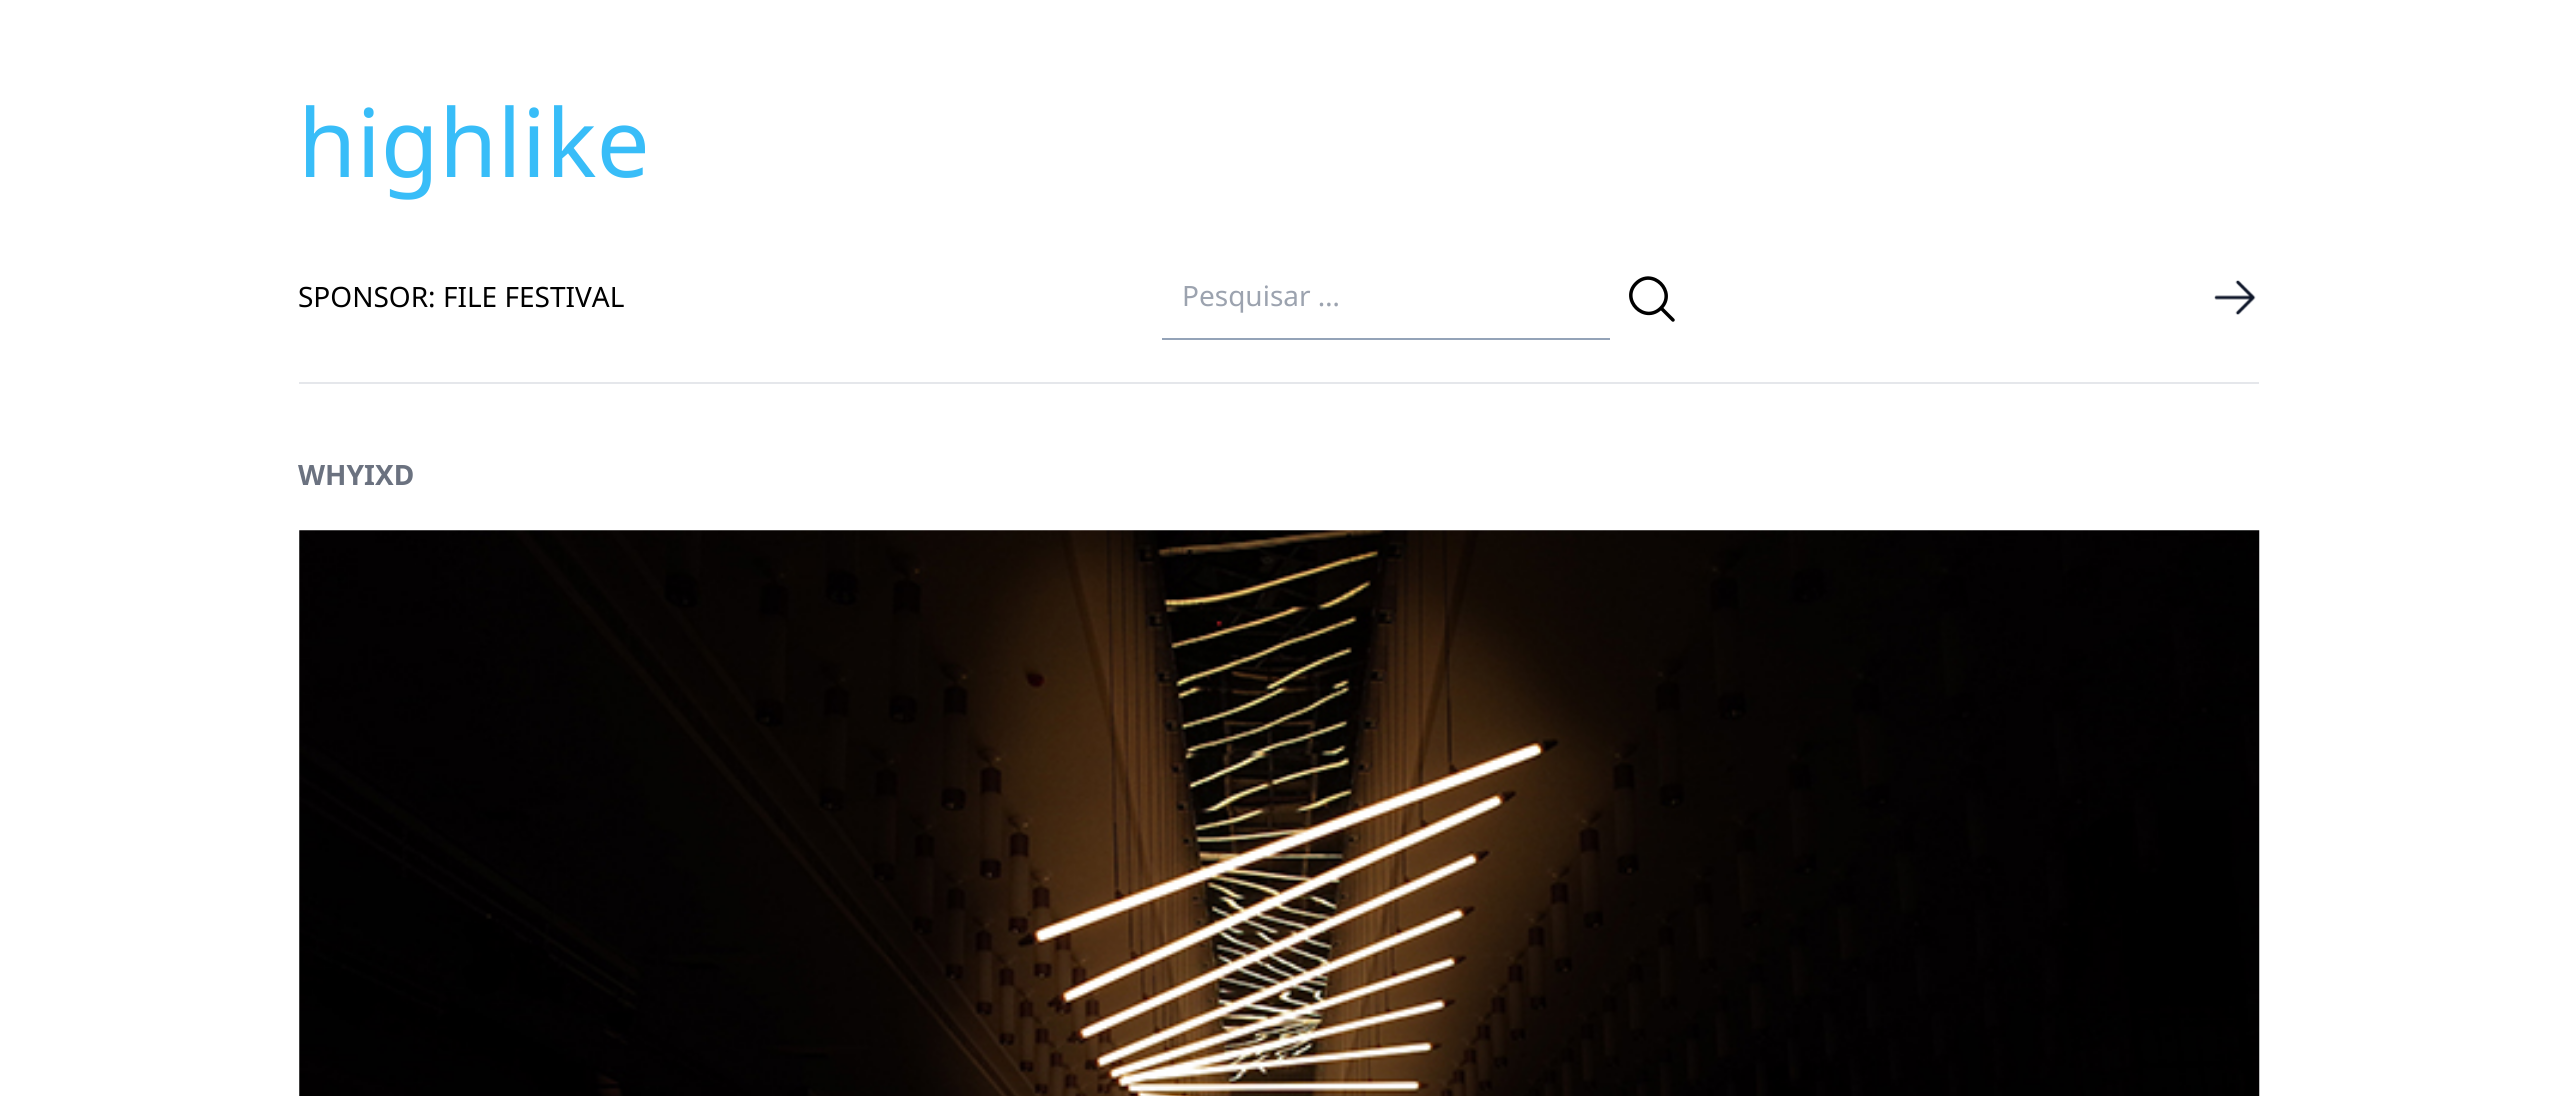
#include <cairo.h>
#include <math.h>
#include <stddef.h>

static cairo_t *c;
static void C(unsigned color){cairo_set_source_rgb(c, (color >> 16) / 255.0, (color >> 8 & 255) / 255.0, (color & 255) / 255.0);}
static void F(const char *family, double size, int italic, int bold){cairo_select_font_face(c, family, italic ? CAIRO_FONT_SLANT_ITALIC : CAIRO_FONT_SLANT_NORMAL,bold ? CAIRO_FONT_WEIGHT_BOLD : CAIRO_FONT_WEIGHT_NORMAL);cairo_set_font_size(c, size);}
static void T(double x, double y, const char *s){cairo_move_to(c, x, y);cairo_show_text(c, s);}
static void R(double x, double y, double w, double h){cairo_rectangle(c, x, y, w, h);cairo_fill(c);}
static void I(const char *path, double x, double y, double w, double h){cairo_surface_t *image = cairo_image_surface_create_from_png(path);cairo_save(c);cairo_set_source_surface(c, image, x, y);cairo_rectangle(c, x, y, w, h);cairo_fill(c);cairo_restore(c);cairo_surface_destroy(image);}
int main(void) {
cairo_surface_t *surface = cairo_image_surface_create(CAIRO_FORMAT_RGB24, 2556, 1096);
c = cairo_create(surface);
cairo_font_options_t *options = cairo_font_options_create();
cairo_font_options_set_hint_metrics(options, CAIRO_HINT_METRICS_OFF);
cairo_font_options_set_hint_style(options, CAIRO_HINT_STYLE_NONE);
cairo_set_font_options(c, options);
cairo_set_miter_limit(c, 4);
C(0xffffff);
cairo_paint(c);
F("Noto Sans",94.5,0,0);
C(0x38bdf8);
T(298,177,"highlike");
C(0xe5e7eb);
R(299,382,1960,2);
F("Noto Sans",28,0,0);
C(0x000000);
T(298,307,"SPONSOR: FILE FESTIVAL");
C(0x94a3b8);
R(1162,338,448,2);
C(0x9ca3af);
T(1182,306,"Pesquisar …");
cairo_new_path(c);
cairo_move_to(c,1673,320);
cairo_line_to(c,1661,308);
cairo_move_to(c,1661,308);
cairo_curve_to(c,1677,292,1652.5,267,1636,283.5);
cairo_curve_to(c,1620,299.5,1644.5,324.5,1661,308);
cairo_close_path(c);
C(0x000000);
cairo_set_line_width(c,3.5);
cairo_set_line_cap(c,CAIRO_LINE_CAP_ROUND);
cairo_set_line_join(c,CAIRO_LINE_JOIN_ROUND);
cairo_stroke(c);
I("1.png",2214,280,42,35);
F("Noto Sans",28,0,1);
C(0x6b7280);
T(298,485,"WHYIXD");
I("2.png",299,530,1961,566);
cairo_surface_write_to_png(surface, "o.png");
cairo_font_options_destroy(options);
cairo_destroy(c);
cairo_surface_destroy(surface);
return 0;
}
